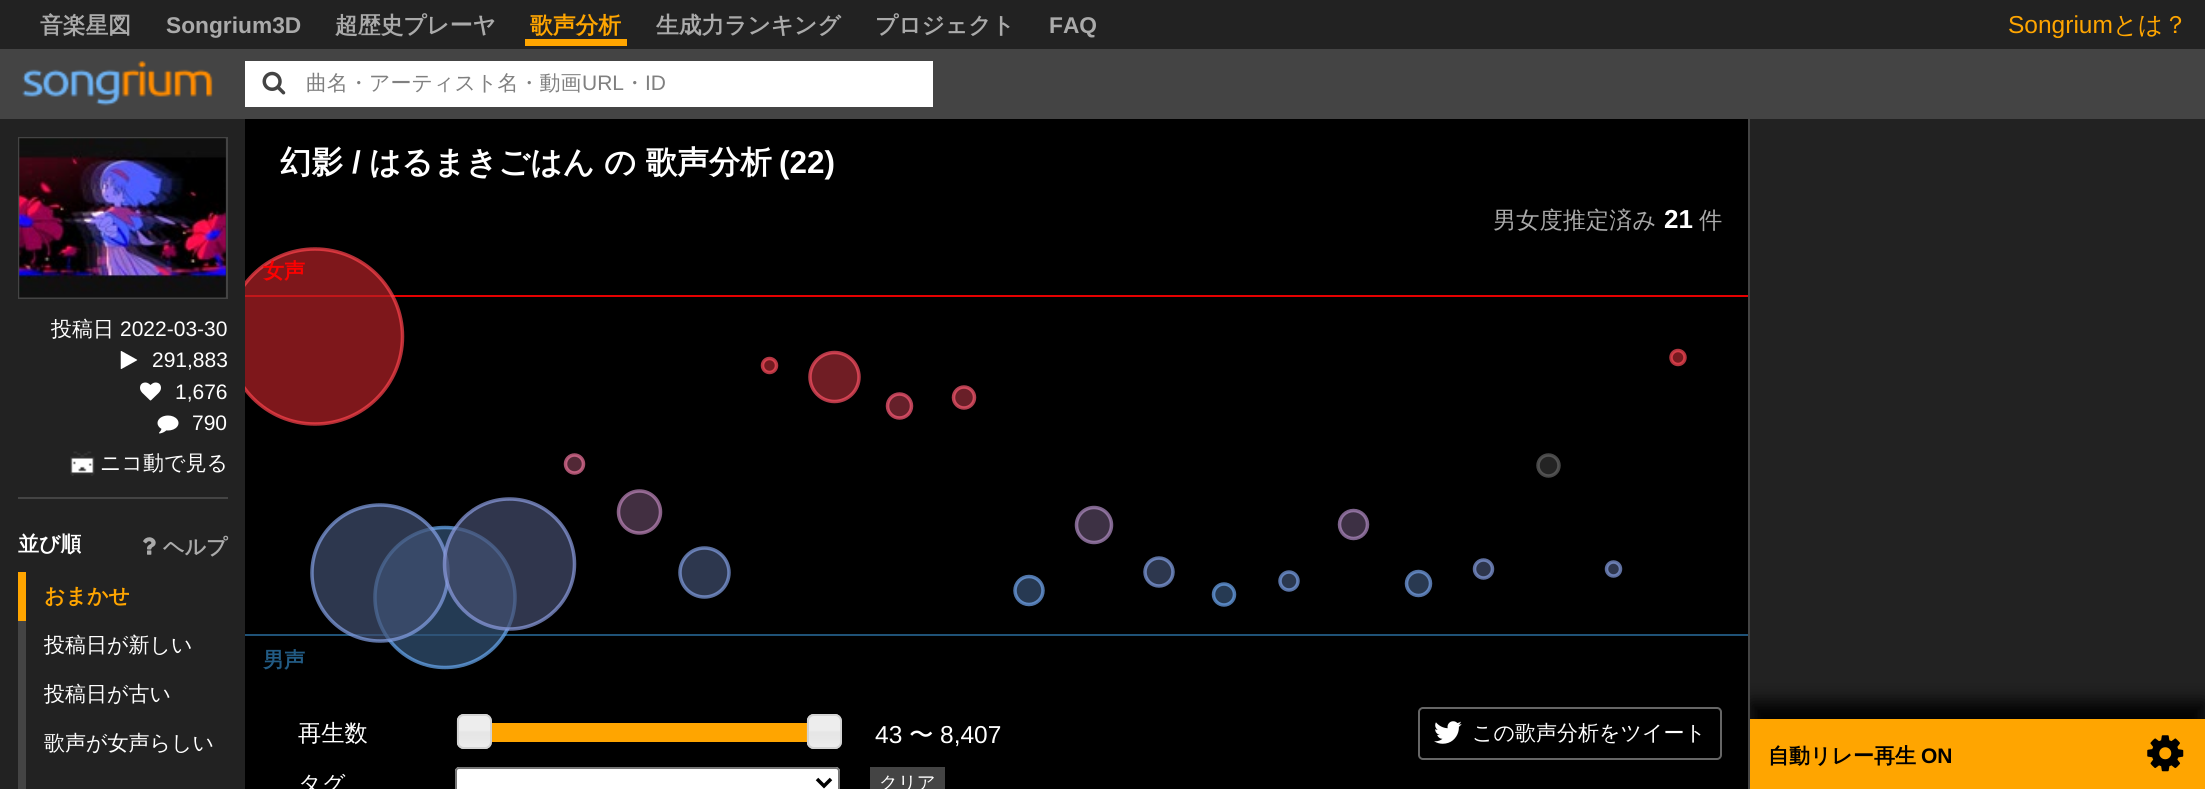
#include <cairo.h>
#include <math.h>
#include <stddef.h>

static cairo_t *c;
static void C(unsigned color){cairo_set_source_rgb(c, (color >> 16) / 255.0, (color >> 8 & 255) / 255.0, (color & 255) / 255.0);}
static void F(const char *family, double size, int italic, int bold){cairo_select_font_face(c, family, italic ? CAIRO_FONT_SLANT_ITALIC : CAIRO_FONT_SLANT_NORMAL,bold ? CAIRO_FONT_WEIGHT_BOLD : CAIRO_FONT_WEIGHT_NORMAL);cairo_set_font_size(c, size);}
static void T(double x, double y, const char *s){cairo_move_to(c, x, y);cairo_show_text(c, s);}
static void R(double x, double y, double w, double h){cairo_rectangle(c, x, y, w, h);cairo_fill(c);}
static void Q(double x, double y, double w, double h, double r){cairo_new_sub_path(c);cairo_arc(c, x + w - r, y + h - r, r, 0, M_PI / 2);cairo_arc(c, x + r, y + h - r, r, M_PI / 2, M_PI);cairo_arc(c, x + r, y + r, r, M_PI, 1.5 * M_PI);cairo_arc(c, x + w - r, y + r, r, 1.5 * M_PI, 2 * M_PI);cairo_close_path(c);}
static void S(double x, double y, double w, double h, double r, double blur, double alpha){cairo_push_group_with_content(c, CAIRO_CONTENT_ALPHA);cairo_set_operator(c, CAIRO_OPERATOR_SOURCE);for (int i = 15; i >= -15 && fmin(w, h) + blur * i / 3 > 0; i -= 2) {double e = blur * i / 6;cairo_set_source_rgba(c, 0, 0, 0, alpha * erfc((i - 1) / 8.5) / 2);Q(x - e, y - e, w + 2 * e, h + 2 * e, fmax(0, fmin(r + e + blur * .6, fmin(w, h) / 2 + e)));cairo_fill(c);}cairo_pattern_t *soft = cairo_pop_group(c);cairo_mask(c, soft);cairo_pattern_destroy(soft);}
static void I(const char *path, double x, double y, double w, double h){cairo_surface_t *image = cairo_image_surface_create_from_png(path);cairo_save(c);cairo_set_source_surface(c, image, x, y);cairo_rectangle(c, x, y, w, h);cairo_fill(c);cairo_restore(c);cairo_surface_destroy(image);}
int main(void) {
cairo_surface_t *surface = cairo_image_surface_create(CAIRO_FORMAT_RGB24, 2205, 789);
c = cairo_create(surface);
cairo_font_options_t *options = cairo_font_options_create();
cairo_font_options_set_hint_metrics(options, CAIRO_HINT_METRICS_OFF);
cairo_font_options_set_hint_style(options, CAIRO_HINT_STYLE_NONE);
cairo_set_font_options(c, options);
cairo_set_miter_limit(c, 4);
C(0x222222);
cairo_paint(c);
F("WenQuanYi Zen Hei",22.75,0,1);
C(0xaaaaaa);
T(40,33,"音楽星図");
F("Liberation Sans",22.75,0,1);
T(166,33,"Songrium3D");
F("WenQuanYi Zen Hei",22.75,0,1);
T(335,33,"超歴史プレーヤ");
C(0xffa500);
T(530,33,"歌声分析");
R(525,39,102,7);
C(0xaaaaaa);
T(656,33,"生成力ランキング");
T(875,33,"プロジェクト");
F("Liberation Sans",22.75,0,1);
T(1049,33,"FAQ");
F("Liberation Sans",24.5,0,0);
C(0xffa500);
T(2008,33,"Songrium");
F("WenQuanYi Zen Hei Medium",24.5,0,0);
T(2113,33,"とは？");
C(0x444444);
R(0,49,2205,70);
I("1.png",22,60,191,46);
C(0xffffff);
R(245,61,688,46);
I("2.png",262,71,24,24);
F("WenQuanYi Zen Hei Medium",21,0,0);
C(0x808080);
T(306,90,"曲名・アーティスト名・動画");
F("Liberation Sans",21,0,0);
T(582,90,"URL");
F("WenQuanYi Zen Hei Medium",21,0,0);
T(624,90,"・");
F("Liberation Sans",21,0,0);
T(645,90,"ID");
cairo_rectangle(c,19,138,208,160);
C(0x444444);
cairo_stroke(c);
I("3.png",19,138,207,160);
R(18,497,210,2);
F("WenQuanYi Zen Hei Medium",21,0,0);
C(0xffffff);
T(51,336,"投稿日");
F("Liberation Sans",21,0,0);
T(120,336,"2022-03-30");
I("4.png",120,351,18,18);
T(152,367,"291,883");
I("5.png",140,382,21,19);
T(175,399,"1,676");
I("6.png",157,415,22,19);
T(192,430,"790");
I("7.png",70,451,25,25);
F("WenQuanYi Zen Hei Medium",21,0,0);
T(100,470,"ニコ動で見る");
F("WenQuanYi Zen Hei",21,0,1);
T(18,551,"並び順");
I("8.png",143,537,13,18);
C(0xaaaaaa);
T(163,554,"ヘルプ");
C(0xffa500);
R(18,572,8,49);
T(44,603,"おまかせ");
C(0x444444);
R(18,621,8,168);
F("WenQuanYi Zen Hei Medium",21,0,0);
C(0xffffff);
T(44,652,"投稿日が新しい");
T(44,701,"投稿日が古い");
T(44,750,"歌声が女声らしい");
C(0x000000);
R(245,119,1503,670);
F("WenQuanYi Zen Hei",31.5,0,1);
C(0xffffff);
T(280,173,"幻影");
F("Liberation Sans",31.5,0,1);
T(352,173,"/");
F("WenQuanYi Zen Hei",31.5,0,1);
T(369,173,"はるまきごはん");
T(604,173,"の 歌声分析");
F("Liberation Sans",31.5,0,1);
T(779,173,"(22)");
F("WenQuanYi Zen Hei Medium",23.25,0,0);
C(0xaaaaaa);
T(1493,228,"男女度推定済み");
F("Liberation Sans",26,0,1);
C(0xffffff);
T(1664,228,"21");
F("WenQuanYi Zen Hei Medium",23.25,0,0);
C(0xaaaaaa);
T(1699,228,"件");
I("9.png",245,247,1503,423);
F("WenQuanYi Zen Hei",21,0,1);
C(0xff0000);
T(263,278,"女声");
C(0x225b84);
T(263,667,"男声");
F("WenQuanYi Zen Hei Medium",23.25,0,0);
C(0xffffff);
T(298,741,"再生数");
I("10.png",456,714,36,35);
Q(458,715,33,33,6);
C(0xd3d3d3);
cairo_stroke(c);
C(0xffa500);
R(492,723,315,19);
I("11.png",806,714,36,35);
Q(808,715,33,33,6);
C(0xd3d3d3);
cairo_stroke(c);
F("Liberation Sans",24.5,0,0);
C(0xffffff);
T(875,743,"43");
F("WenQuanYi Zen Hei Medium",24.5,0,0);
T(909,743,"〜");
F("Liberation Sans",24.5,0,0);
T(940,743,"8,407");
Q(1419,708,302,51,4);
C(0x666666);
cairo_stroke(c);
I("12.png",1434,721,28,23);
F("WenQuanYi Zen Hei Medium",21,0,0);
C(0xffffff);
T(1472,740,"この歌声分析をツイート");
F("WenQuanYi Zen Hei Medium",23.25,0,0);
T(298,792,"タグ");
cairo_new_path(c);
cairo_move_to(c,459,767);
cairo_line_to(c,836,767);
cairo_curve_to(c,838,767,840,769,840,771);
cairo_line_to(c,840,789);
cairo_line_to(c,455,789);
cairo_line_to(c,455,771);
cairo_curve_to(c,455,769,457,767,459,767);
cairo_close_path(c);
cairo_fill(c);
Q(456,768,383,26,3);
C(0x767676);
cairo_stroke(c);
cairo_new_path(c);
cairo_move_to(c,817,779);
cairo_line_to(c,824,786);
cairo_line_to(c,831,779);
C(0x000000);
cairo_set_line_width(c,3.5);
cairo_stroke(c);
C(0x444444);
R(870,767,75,22);
F("WenQuanYi Zen Hei Medium",18.5,0,0);
C(0xffffff);
T(879,789,"クリア");
C(0x444444);
R(1748,119,2,670);
cairo_save(c);
cairo_rectangle(c,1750,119,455,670);
cairo_clip(c);
C(0x000000);
S(1750,702,455,70,0,9,1);
cairo_restore(c);
C(0xffa500);
R(1750,719,455,70);
F("WenQuanYi Zen Hei",21,0,1);
C(0x000000);
T(1768,763,"自動リレー再生");
F("Liberation Sans",21,0,1);
T(1921,763,"ON");
I("13.png",2147,735,37,37);
cairo_surface_write_to_png(surface, "o.png");
cairo_font_options_destroy(options);
cairo_destroy(c);
cairo_surface_destroy(surface);
return 0;
}
